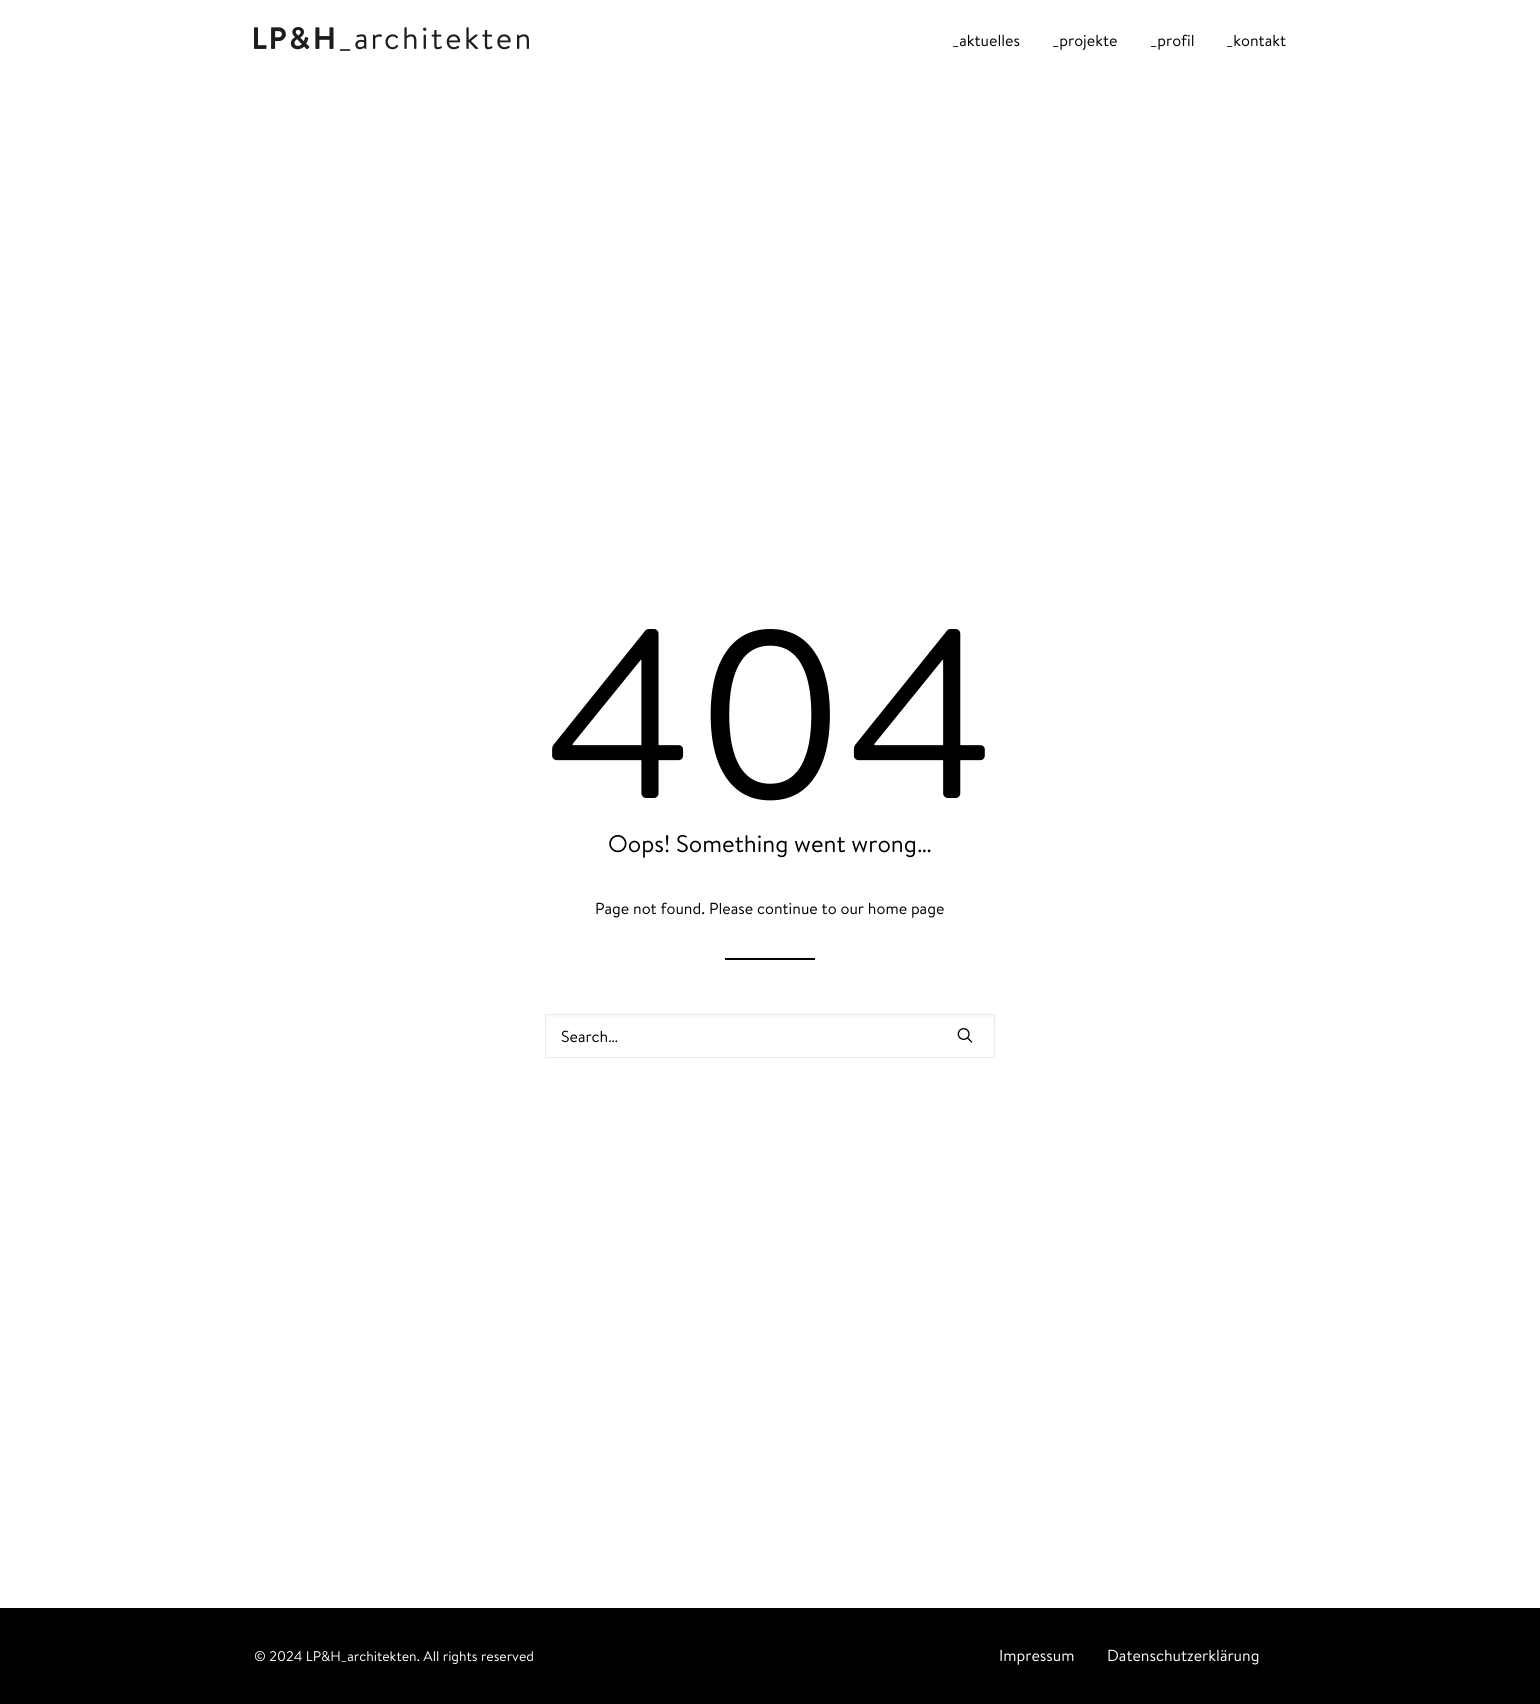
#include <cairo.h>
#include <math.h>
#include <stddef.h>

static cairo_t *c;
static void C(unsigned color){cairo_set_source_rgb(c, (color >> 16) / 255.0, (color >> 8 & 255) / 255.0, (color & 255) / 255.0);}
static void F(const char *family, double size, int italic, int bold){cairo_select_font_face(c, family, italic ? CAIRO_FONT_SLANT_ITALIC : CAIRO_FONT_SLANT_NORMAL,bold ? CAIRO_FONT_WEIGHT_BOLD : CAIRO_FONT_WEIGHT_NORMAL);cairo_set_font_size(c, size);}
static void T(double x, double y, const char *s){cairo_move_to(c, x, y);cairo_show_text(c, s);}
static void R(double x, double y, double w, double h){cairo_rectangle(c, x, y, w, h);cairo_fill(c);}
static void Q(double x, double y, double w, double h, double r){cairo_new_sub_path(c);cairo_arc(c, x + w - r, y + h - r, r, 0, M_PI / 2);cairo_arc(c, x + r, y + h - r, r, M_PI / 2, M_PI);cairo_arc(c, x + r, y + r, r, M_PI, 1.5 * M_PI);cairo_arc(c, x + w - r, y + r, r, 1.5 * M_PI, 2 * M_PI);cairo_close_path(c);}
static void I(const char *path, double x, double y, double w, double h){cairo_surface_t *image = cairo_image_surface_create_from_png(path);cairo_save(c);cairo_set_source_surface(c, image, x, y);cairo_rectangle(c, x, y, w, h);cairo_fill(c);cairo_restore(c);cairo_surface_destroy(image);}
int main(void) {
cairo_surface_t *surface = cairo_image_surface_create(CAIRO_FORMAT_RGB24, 1540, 1704);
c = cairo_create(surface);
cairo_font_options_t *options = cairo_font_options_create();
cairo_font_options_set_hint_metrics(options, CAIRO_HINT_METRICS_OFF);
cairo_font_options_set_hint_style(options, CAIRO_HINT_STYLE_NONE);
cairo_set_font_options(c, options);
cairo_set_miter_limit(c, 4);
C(0xffffff);
cairo_paint(c);
I("1.png",254,27,275,24);
F("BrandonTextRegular",16,0,0);
C(0x000000);
T(952,46,"_aktuelles");
T(1052,46,"_projekte");
T(1150,46,"_profil");
T(1226,46,"_kontakt");
F("BrandonTextRegular",238,0,0);
T(545,798,"404");
F("BrandonTextRegular",24,0,0);
T(608,852,"Oops! Something went wrong…");
F("BrandonTextRegular",16,0,0);
T(595,914,"Page not found. Please continue to our home page");
R(725,958,90,2);
C(0xf9f9f9);
cairo_new_path(c);
cairo_move_to(c,547,1017);
cairo_line_to(c,993,1017);
cairo_curve_to(c,994,1017,994,1017,994,1018);
cairo_line_to(c,994,1015);
cairo_line_to(c,993,1015);
cairo_line_to(c,547,1015);
cairo_curve_to(c,546,1015,546,1017,546,1018);
cairo_curve_to(c,546,1017,546,1017,547,1017);
cairo_close_path(c);
cairo_fill(c);
Q(545.5,1014.5,449,43,1.5);
C(0xeaeaea);
cairo_set_line_width(c,1);
cairo_stroke(c);
C(0x000000);
T(561,1042,"Search…");
I("2.png",957,1028,16,15);
R(0,1608,1540,96);
F("BrandonTextRegular",14,0,0);
C(0xffffff);
T(254,1661,"© 2024 LP&H_architekten. All rights reserved");
F("BrandonTextRegular",16,0,0);
T(999,1661,"Impressum");
T(1107,1661,"Datenschutzerklärung");
cairo_surface_write_to_png(surface, "o.png");
cairo_font_options_destroy(options);
cairo_destroy(c);
cairo_surface_destroy(surface);
return 0;
}
